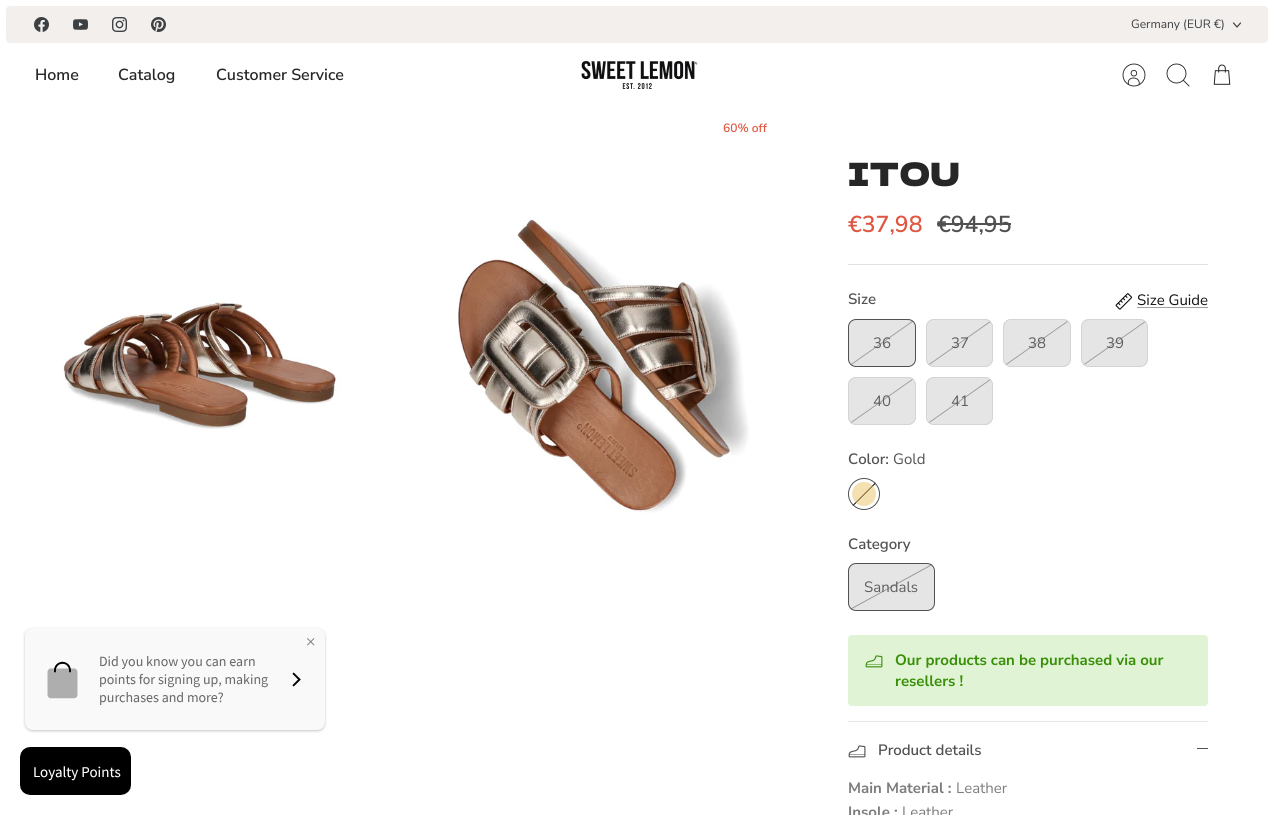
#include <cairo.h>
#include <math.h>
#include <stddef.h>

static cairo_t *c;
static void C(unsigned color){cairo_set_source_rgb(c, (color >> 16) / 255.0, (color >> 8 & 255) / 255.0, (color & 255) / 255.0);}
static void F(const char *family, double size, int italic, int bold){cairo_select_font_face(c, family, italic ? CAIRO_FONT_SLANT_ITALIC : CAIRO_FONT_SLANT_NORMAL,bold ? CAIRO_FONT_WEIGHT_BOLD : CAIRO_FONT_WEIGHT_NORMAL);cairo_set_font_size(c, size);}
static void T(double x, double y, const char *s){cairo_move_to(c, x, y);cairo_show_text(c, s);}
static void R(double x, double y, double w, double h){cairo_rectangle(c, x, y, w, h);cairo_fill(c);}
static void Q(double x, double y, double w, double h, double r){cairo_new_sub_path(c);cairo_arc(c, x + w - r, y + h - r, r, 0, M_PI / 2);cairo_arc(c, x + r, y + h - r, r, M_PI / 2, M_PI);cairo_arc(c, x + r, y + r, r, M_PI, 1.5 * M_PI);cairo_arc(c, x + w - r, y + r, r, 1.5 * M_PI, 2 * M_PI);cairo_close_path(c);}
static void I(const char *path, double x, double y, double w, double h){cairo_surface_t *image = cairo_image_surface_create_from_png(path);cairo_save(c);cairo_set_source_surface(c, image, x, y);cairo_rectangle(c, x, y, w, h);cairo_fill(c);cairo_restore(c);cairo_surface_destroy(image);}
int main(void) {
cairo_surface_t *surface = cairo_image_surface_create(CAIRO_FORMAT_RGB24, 1274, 815);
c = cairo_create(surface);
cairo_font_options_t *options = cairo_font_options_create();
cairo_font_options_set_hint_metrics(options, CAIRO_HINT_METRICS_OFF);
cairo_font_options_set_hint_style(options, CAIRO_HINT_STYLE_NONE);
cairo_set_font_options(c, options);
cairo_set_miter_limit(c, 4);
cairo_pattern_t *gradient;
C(0xffffff);
cairo_paint(c);
C(0xf3efed);
Q(6,6,1262,37,4);
cairo_fill(c);
I("1.png",34,17,15,15);
I("2.png",73,19,15,11);
I("3.png",112,17,15,15);
I("4.png",151,17,15,15);
F("Nunito Sans",12,0,0);
C(0x3c4043);
T(1131,28,"Germany (EUR €)");
cairo_new_path(c);
cairo_move_to(c,1233.5,23);
cairo_line_to(c,1237,27);
cairo_line_to(c,1240.5,23);
cairo_set_line_width(c,1.2);
cairo_set_line_cap(c,CAIRO_LINE_CAP_ROUND);
cairo_set_line_join(c,CAIRO_LINE_JOIN_ROUND);
cairo_stroke(c);
F("Nunito Sans SemiBold",16,0,0);
C(0x262626);
T(35,80,"Home");
T(118,80,"Catalog");
T(216,80,"Customer Service");
I("5.png",581,61,117,28);
cairo_new_path(c);
cairo_move_to(c,1139,85);
cairo_curve_to(c,1141.5,76,1126,75.5,1128.5,84.5);
cairo_set_line_width(c,.9);
cairo_set_line_cap(c,CAIRO_LINE_CAP_BUTT);
cairo_set_line_join(c,CAIRO_LINE_JOIN_MITER);
cairo_stroke(c);
cairo_arc(c,1133.9,73.2,2.8,0,2 * M_PI);
cairo_stroke(c);
cairo_arc(c,1134,75,11,0,2 * M_PI);
cairo_stroke(c);
cairo_arc(c,1176.5,73.5,9.5,0,2 * M_PI);
cairo_stroke(c);
cairo_new_path(c);
cairo_move_to(c,1183.5,80.5);
cairo_line_to(c,1189,86);
cairo_set_line_cap(c,CAIRO_LINE_CAP_SQUARE);
cairo_stroke(c);
I("6.png",1213,64,18,21);
I("8.png",6,105,388,559);
I("7.png",23,627,304,106);
I("9.png",400,105,388,559);
F("Nunito Sans SemiBold",12,0,0);
C(0xdf5641);
T(723,132,"60% off");
F("Dela Gothic One",32,0,0);
C(0x262626);
T(848,186,"ITOU");
F("Nunito Sans SemiBold",23,0,0);
C(0xdf5641);
T(848,232,"€37,98");
C(0x515151);
T(937,232,"€94,95");
R(937,223,74,2);
C(0xe2e2e2);
R(848,264,360,1);
F("Nunito Sans SemiBold",15,0,0);
C(0x515151);
T(848,304,"Size");
I("10.png",1115,293,18,17);
F("Nunito Sans",15,0,0);
C(0x121212);
T(1137,305,"Size Guide");
C(0xa0a0a0);
R(1137,307,71,1);
C(0xe5e5e5);
Q(848,319,68,48,8);
cairo_fill(c);
cairo_save(c);
Q(848,319,68,48,8);
cairo_clip(c);
cairo_new_path(c);
cairo_move_to(c,914.5,320);
cairo_line_to(c,849,366);
C(0x9b9b9b);
cairo_set_line_cap(c,CAIRO_LINE_CAP_BUTT);
cairo_stroke(c);
cairo_restore(c);
Q(848.5,319.5,67,47,7.5);
C(0x515151);
cairo_set_line_width(c,1);
cairo_set_line_cap(c,CAIRO_LINE_CAP_BUTT);
cairo_stroke(c);
C(0x5f5f5f);
T(873,348,"36");
C(0xe5e5e5);
Q(926,319,67,48,8);
cairo_fill(c);
cairo_save(c);
Q(926,319,67,48,8);
cairo_clip(c);
cairo_new_path(c);
cairo_move_to(c,992.5,320);
cairo_line_to(c,927,366);
cairo_set_source_rgba(c,0.318,0.318,0.318,0.5);
cairo_set_line_width(c,.9);
cairo_stroke(c);
cairo_restore(c);
Q(926.5,319.5,66,47,7.5);
C(0xd4d4d4);
cairo_stroke(c);
C(0x5f5f5f);
T(951,348,"37");
C(0xe5e5e5);
Q(1003,319,68,48,8);
cairo_fill(c);
cairo_save(c);
Q(1003,319,68,48,8);
cairo_clip(c);
cairo_new_path(c);
cairo_move_to(c,1069.5,320);
cairo_line_to(c,1004,366);
C(0x9b9b9b);
cairo_set_line_width(c,.9);
cairo_stroke(c);
cairo_restore(c);
Q(1003.5,319.5,67,47,7.5);
C(0xd4d4d4);
cairo_stroke(c);
C(0x5f5f5f);
T(1028,348,"38");
C(0xe5e5e5);
Q(1081,319,67,48,8);
cairo_fill(c);
cairo_save(c);
Q(1081,319,67,48,8);
cairo_clip(c);
cairo_new_path(c);
cairo_move_to(c,1147.5,320);
cairo_line_to(c,1082,366);
cairo_set_source_rgba(c,0.318,0.318,0.318,0.5);
cairo_set_line_width(c,.9);
cairo_stroke(c);
cairo_restore(c);
Q(1081.5,319.5,66,47,7.5);
C(0xd4d4d4);
cairo_stroke(c);
C(0x5f5f5f);
T(1106,348,"39");
C(0xe5e5e5);
Q(848,377,68,48,8);
cairo_fill(c);
cairo_save(c);
Q(848,377,68,48,8);
cairo_clip(c);
cairo_new_path(c);
cairo_move_to(c,914.5,378);
cairo_line_to(c,849,424);
C(0x9b9b9b);
cairo_set_line_width(c,.9);
cairo_stroke(c);
cairo_restore(c);
Q(848.5,377.5,67,47,7.5);
C(0xd4d4d4);
cairo_stroke(c);
C(0x5f5f5f);
T(873,406,"40");
C(0xe5e5e5);
Q(926,377,67,48,8);
cairo_fill(c);
cairo_save(c);
Q(926,377,67,48,8);
cairo_clip(c);
cairo_new_path(c);
cairo_move_to(c,992.5,378);
cairo_line_to(c,927,424);
cairo_set_source_rgba(c,0.318,0.318,0.318,0.5);
cairo_set_line_width(c,.9);
cairo_stroke(c);
cairo_restore(c);
Q(926.5,377.5,66,47,7.5);
C(0xd4d4d4);
cairo_stroke(c);
C(0x5f5f5f);
T(951,406,"41");
F("Nunito Sans SemiBold",15,0,0);
C(0x515151);
T(848,464,"Color:");
F("Nunito Sans",15,0,0);
T(893,464,"Gold");
gradient = cairo_pattern_create_linear(880,510,848,478);
cairo_pattern_add_color_stop_rgba(gradient,0,1,1,1,1);
cairo_pattern_add_color_stop_rgba(gradient,.48,1,1,1,1);
cairo_pattern_add_color_stop_rgba(gradient,.48,0.318,0.318,0.318,1);
cairo_pattern_add_color_stop_rgba(gradient,.51,0.318,0.318,0.318,1);
cairo_pattern_add_color_stop_rgba(gradient,.51,1,1,1,1);
cairo_pattern_add_color_stop_rgba(gradient,1,1,1,1,1);
cairo_set_source(c,gradient);
cairo_pattern_destroy(gradient);
cairo_new_path(c);
cairo_arc(c,864,494,16,0,2 * M_PI);
cairo_fill(c);
cairo_set_source_rgba(c,0.918,0.765,0.396,0.5);
cairo_arc(c,864,494,12,0,2 * M_PI);
cairo_fill(c);
cairo_arc(c,864,494,15.5,0,2 * M_PI);
C(0x515151);
cairo_stroke(c);
F("Nunito Sans SemiBold",15,0,0);
T(848,549,"Category");
C(0xe5e5e5);
Q(848,563,87,48,8);
cairo_fill(c);
cairo_save(c);
Q(848,563,87,48,8);
cairo_clip(c);
cairo_new_path(c);
cairo_move_to(c,933,564);
cairo_line_to(c,849,610);
C(0x9b9b9b);
cairo_stroke(c);
cairo_restore(c);
Q(848.5,563.5,86,47,7.5);
C(0x515151);
cairo_stroke(c);
F("Nunito Sans",15,0,0);
C(0x5f5f5f);
T(864,592,"Sandals");
C(0xe0f4d5);
Q(848,635,360,71,4);
cairo_fill(c);
I("11.png",865,655,18,13);
F("Nunito Sans",15,0,1);
C(0x398f08);
T(895,665,"Our products can be purchased via our");
T(895,686,"resellers !");
C(0xe5e5e5);
R(848,721,360,1);
I("12.png",848,745,18,13);
F("Nunito Sans SemiBold",15,0,0);
C(0x515151);
T(878,755,"Product details");
R(1197,748,11,1);
F("Nunito Sans",15,0,1);
C(0x7d7d7d);
T(848,793,"Main Material :");
F("Nunito Sans",15,0,0);
T(956,793,"Leather");
F("Nunito Sans",15,0,1);
T(848,817,"Insole :");
F("Nunito Sans",15,0,0);
T(902,817,"Leather");
I("13.png",20,747,111,48);
cairo_surface_write_to_png(surface, "o.png");
cairo_font_options_destroy(options);
cairo_destroy(c);
cairo_surface_destroy(surface);
return 0;
}
